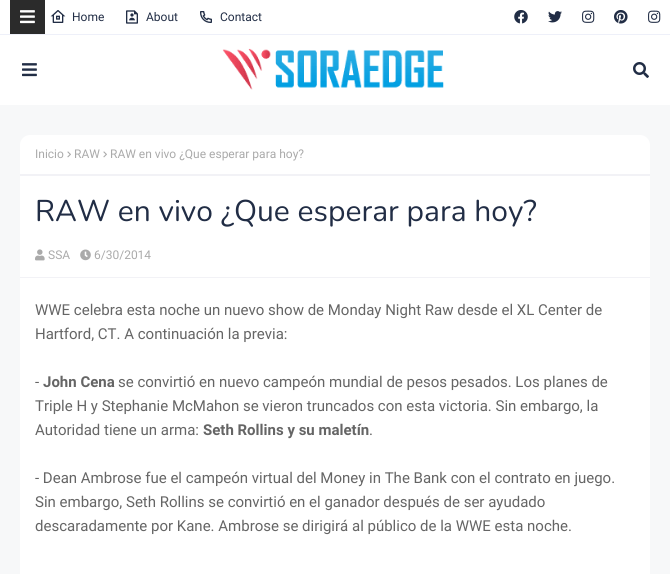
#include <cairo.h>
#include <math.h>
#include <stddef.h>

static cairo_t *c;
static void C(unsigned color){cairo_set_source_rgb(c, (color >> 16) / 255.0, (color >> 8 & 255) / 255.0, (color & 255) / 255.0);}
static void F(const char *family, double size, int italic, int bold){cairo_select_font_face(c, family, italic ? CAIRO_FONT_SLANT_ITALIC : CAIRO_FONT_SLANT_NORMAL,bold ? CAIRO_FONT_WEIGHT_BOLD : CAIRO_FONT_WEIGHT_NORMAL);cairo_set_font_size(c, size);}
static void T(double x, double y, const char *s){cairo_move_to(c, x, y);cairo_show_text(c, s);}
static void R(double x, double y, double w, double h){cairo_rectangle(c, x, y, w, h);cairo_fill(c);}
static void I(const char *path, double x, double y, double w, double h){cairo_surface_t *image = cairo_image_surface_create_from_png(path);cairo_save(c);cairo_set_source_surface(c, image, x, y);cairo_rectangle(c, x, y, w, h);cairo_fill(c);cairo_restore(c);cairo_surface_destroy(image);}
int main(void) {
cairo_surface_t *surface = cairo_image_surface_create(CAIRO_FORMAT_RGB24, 670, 574);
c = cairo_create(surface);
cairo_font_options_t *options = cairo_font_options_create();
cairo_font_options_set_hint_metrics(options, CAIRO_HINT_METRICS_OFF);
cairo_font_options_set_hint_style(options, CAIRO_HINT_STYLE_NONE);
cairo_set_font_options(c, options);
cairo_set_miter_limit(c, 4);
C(0xf7f8f9);
cairo_paint(c);
C(0xffffff);
R(0,0,670,34);
C(0xeef0f9);
R(0,34,670,1);
C(0x2b2b2b);
R(10,0,35,34);
I("1.png",20,10,15,14);
I("2.png",50,10,16,13);
F("Roboto",12,0,0);
C(0x212d45);
T(72,21,"Home");
I("3.png",126,10,12,14);
T(146,21,"About");
I("4.png",200,11,12,12);
T(220,21,"Contact");
I("5.png",514,10,14,14);
I("6.png",548,11,14,12);
I("7.png",582,10,13,13);
I("8.png",614,10,14,14);
I("7.png",648,10,13,13);
C(0xffffff);
R(0,35,670,70);
I("9.png",22,63,15,14);
I("10.png",222,48,222,42);
I("11.png",633,62,16,16);
cairo_new_path(c);
cairo_move_to(c,30,135);
cairo_line_to(c,640,135);
cairo_curve_to(c,645.5,135,650,139.5,650,145);
cairo_line_to(c,650,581);
cairo_curve_to(c,650,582.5,648.5,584,647,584);
cairo_line_to(c,23,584);
cairo_curve_to(c,21.5,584,20,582.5,20,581);
cairo_line_to(c,20,145);
cairo_curve_to(c,20,139.5,24.5,135,30,135);
cairo_close_path(c);
cairo_fill(c);
C(0xf2f2f6);
R(20,174,630,2);
C(0xaaaaaa);
T(35,158,"Inicio");
I("12.png",67,151,4,7);
T(74,158,"RAW");
I("12.png",103,151,4,7);
T(110,158,"RAW en vivo ¿Que esperar para hoy?");
F("Nunito",30,0,0);
C(0x212d45);
T(35,221,"RAW en vivo ¿Que esperar para hoy?");
I("13.png",35,249,10,12);
F("Roboto",12,0,0);
C(0xaaaaaa);
T(48,259,"SSA");
I("14.png",80,249,11,12);
T(94,259,"6/30/2014");
C(0xf2f2f6);
R(20,277,630,1);
F("Roboto",15,0,0);
C(0x656565);
T(35,315,"WWE celebra esta noche un nuevo show de Monday Night Raw desde el XL Center de");
T(35,339,"Hartford, CT. A continuación la previa:");
T(35,387,"-");
F("Roboto",15,0,1);
T(43,387,"John Cena");
F("Roboto",15,0,0);
T(118,387,"se convirtió en nuevo campeón mundial de pesos pesados. Los planes de");
T(35,411,"Triple H y Stephanie McMahon se vieron truncados con esta victoria. Sin embargo, la");
T(35,435,"Autoridad tiene un arma:");
F("Roboto",15,0,1);
T(203,435,"Seth Rollins y su maletín");
F("Roboto",15,0,0);
T(369,435,".");
T(35,483,"- Dean Ambrose fue el campeón virtual del Money in The Bank con el contrato en juego.");
T(35,507,"Sin embargo, Seth Rollins se convirtió en el ganador después de ser ayudado");
T(35,531,"descaradamente por Kane. Ambrose se dirigirá al público de la WWE esta noche.");
cairo_surface_write_to_png(surface, "o.png");
cairo_font_options_destroy(options);
cairo_destroy(c);
cairo_surface_destroy(surface);
return 0;
}
